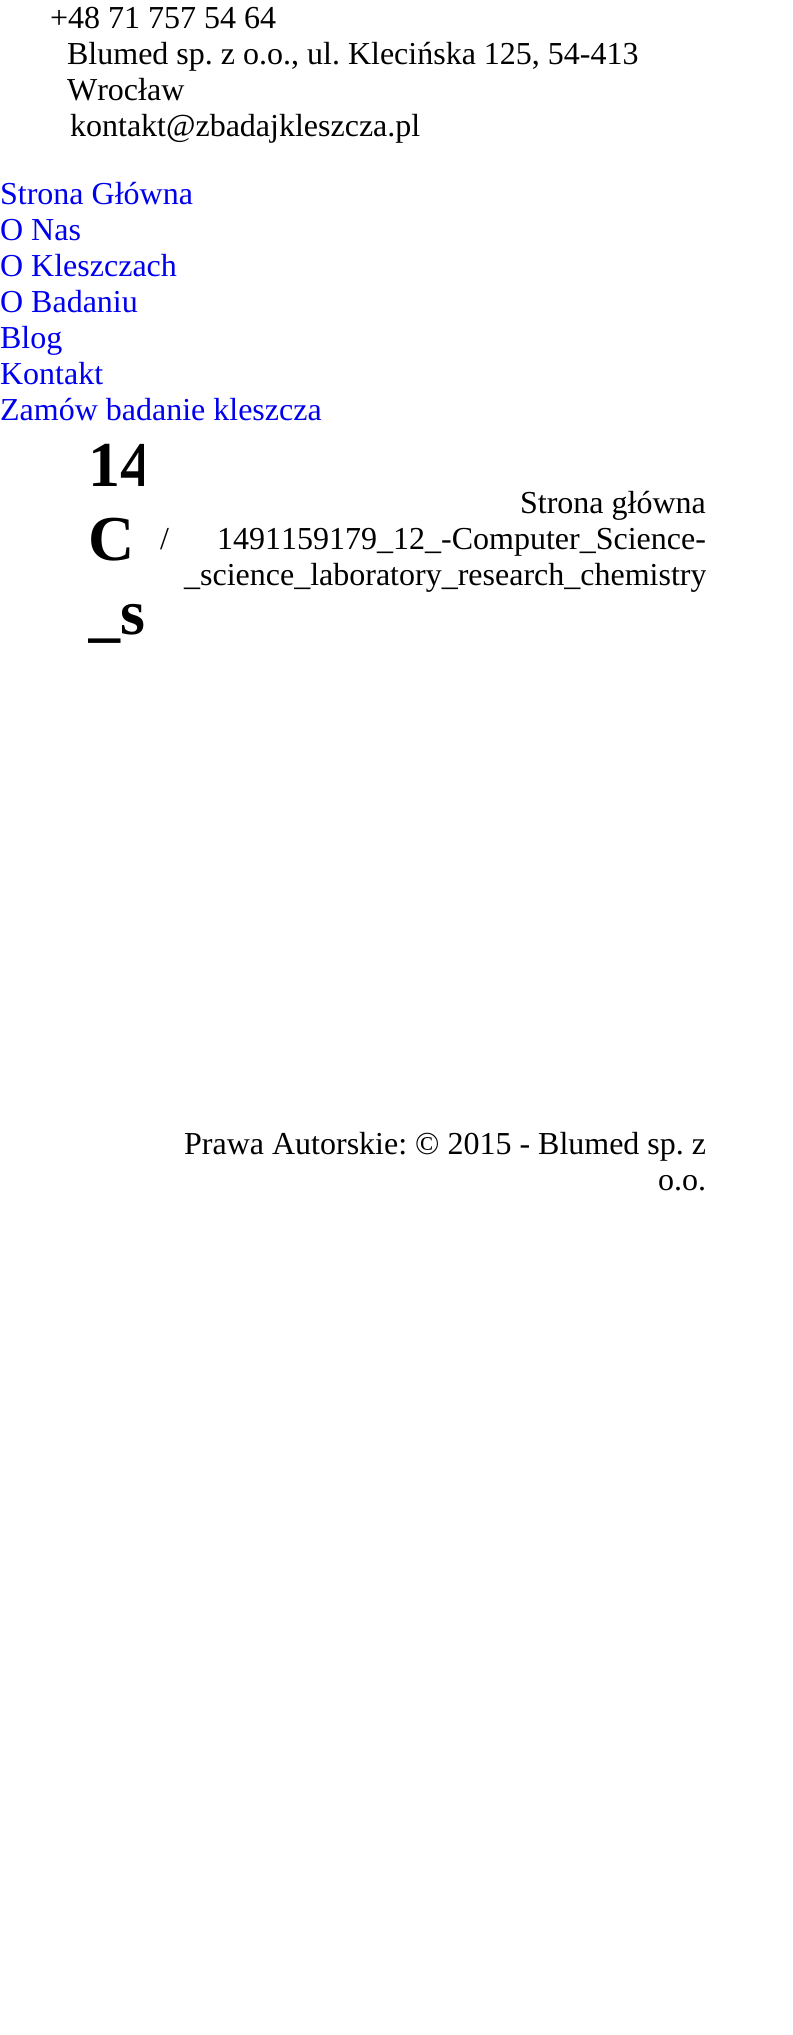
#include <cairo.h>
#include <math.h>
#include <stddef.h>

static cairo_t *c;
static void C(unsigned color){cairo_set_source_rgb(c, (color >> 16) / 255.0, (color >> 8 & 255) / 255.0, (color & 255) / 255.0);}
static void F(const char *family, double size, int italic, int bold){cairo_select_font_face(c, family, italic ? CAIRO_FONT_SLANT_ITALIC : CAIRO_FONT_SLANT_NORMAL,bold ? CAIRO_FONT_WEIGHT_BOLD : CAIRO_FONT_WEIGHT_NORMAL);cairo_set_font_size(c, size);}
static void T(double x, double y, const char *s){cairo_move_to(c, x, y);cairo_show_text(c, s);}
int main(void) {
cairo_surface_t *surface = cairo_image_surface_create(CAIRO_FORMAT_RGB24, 793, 2035);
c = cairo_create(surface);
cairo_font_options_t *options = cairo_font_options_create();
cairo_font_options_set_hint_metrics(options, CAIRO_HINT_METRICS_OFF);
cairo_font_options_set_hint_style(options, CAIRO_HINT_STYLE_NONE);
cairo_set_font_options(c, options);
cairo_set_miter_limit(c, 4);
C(0xffffff);
cairo_paint(c);
F("Liberation Serif",32,0,0);
C(0x000000);
T(50,28,"+48 71 757 54 64");
T(67,64,"Blumed sp. z o.o., ul. Klecińska 125, 54-413");
T(67,100,"Wrocław");
T(70,136,"kontakt@zbadajkleszcza.pl");
C(0x0000ee);
T(0,204,"Strona Główna");
T(0,240,"O Nas");
T(0,276,"O Kleszczach");
T(0,312,"O Badaniu");
T(0,348,"Blog");
T(0,384,"Kontakt");
T(0,420,"Zamów badanie kleszcza");
cairo_save(c);
cairo_rectangle(c,88,428,56,222);
cairo_clip(c);
F("Liberation Serif",64,0,1);
C(0x000000);
T(88,486,"14");
cairo_restore(c);
F("Liberation Serif",64,0,1);
C(0x000000);
T(88,560,"C");
cairo_save(c);
cairo_rectangle(c,88,428,56,222);
cairo_clip(c);
T(88,634,"_s");
cairo_restore(c);
F("Liberation Serif",32,0,0);
T(520,513,"Strona główna");
T(160,549,"/");
T(217,549,"1491159179_12_-Computer_Science-");
T(184,585,"_science_laboratory_research_chemistry");
T(184,1154,"Prawa Autorskie: © 2015 - Blumed sp. z");
T(658,1190,"o.o.");
cairo_surface_write_to_png(surface, "o.png");
cairo_font_options_destroy(options);
cairo_destroy(c);
cairo_surface_destroy(surface);
return 0;
}
